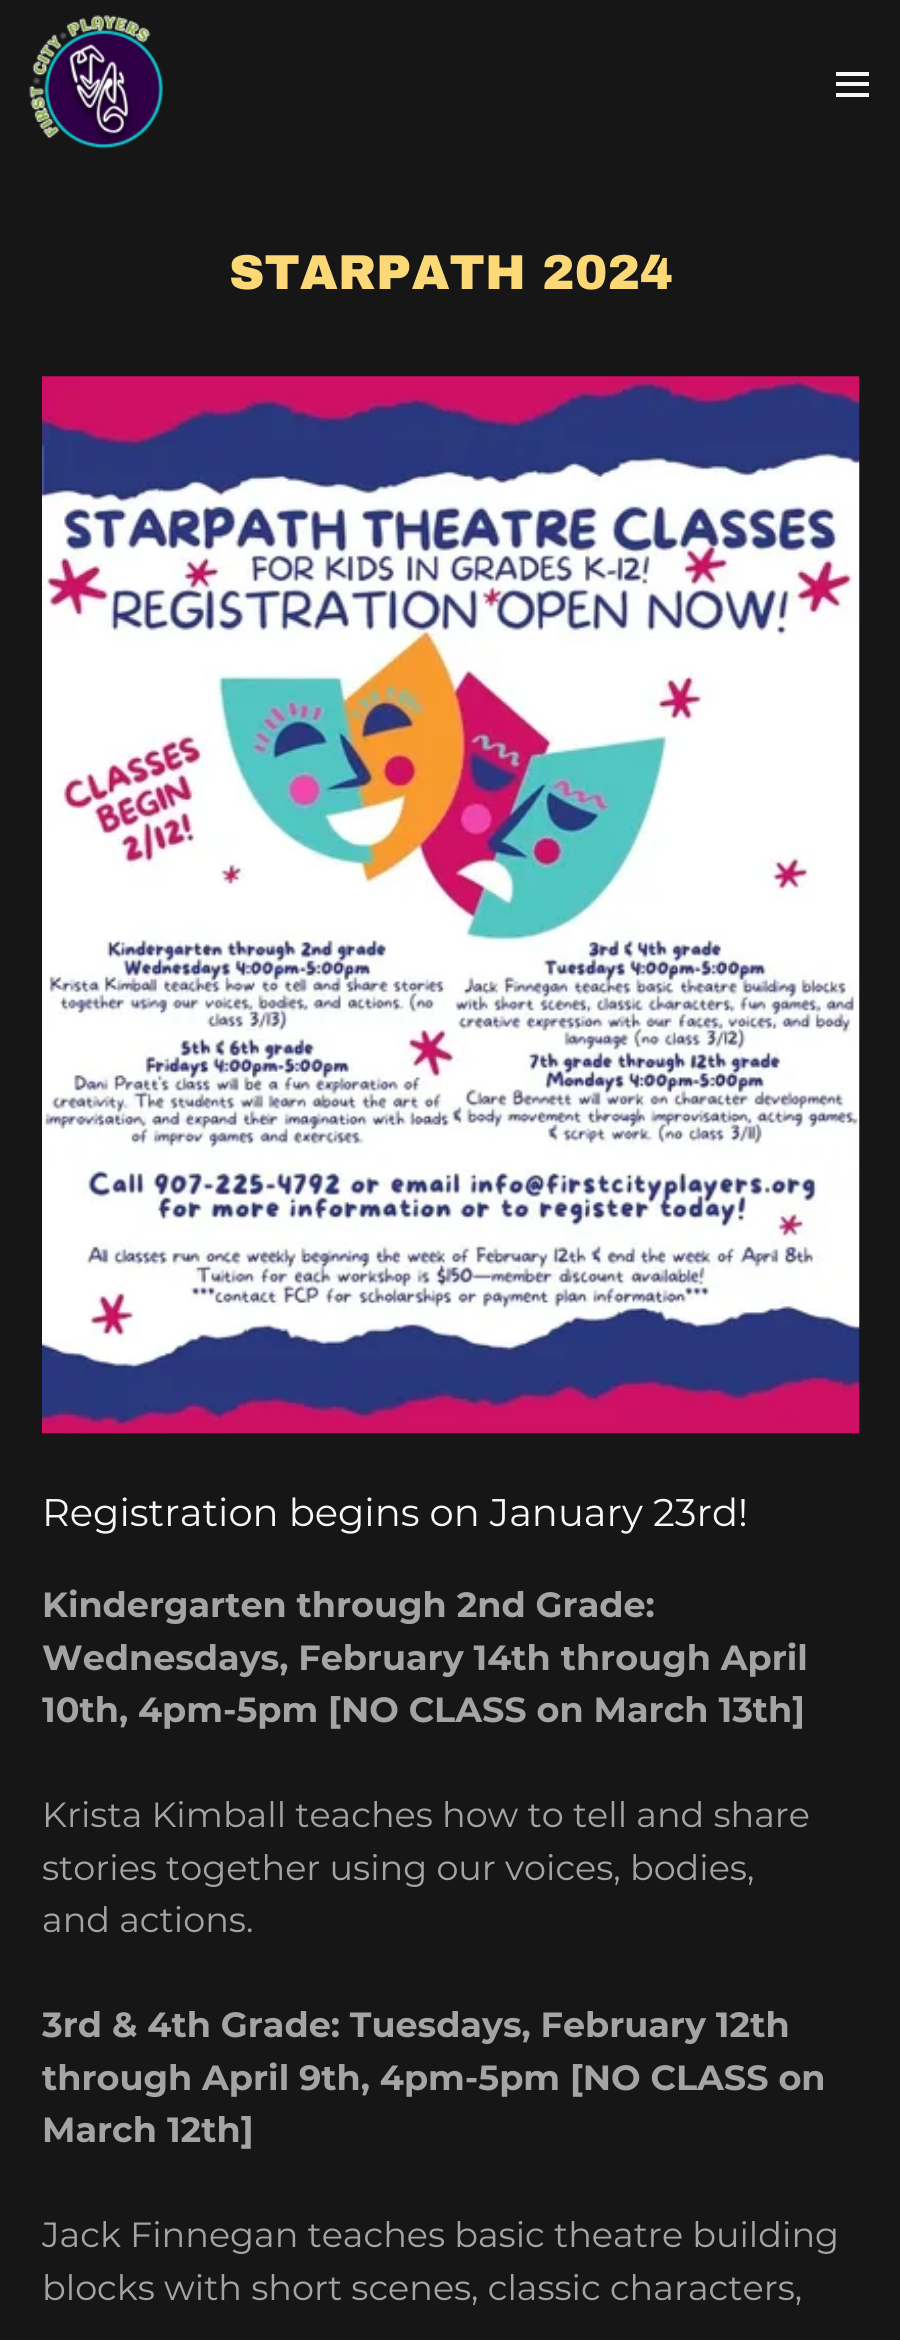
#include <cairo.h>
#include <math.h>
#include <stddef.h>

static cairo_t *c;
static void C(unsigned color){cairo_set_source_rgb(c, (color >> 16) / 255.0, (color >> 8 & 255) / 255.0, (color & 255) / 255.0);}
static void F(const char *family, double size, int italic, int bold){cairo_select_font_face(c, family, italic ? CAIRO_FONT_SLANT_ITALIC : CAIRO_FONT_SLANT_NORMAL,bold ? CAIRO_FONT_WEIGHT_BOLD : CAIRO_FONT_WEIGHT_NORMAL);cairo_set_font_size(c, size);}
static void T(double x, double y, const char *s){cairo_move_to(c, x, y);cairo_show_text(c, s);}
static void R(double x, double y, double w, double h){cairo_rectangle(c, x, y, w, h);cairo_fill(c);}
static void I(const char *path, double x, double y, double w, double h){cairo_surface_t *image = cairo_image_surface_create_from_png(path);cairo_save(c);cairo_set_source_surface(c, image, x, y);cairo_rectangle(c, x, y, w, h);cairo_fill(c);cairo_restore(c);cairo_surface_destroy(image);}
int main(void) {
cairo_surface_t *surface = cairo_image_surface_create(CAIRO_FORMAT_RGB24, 900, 2340);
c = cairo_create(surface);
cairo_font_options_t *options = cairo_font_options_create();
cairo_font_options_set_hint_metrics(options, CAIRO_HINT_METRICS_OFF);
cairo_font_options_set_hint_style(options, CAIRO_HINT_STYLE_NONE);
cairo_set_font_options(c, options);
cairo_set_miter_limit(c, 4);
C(0x161616);
cairo_paint(c);
I("1.png",29,15,134,134);
C(0xf7f7f7);
R(836,72,33,4);
R(836,82,33,4);
R(836,93,33,4);
F("Archivo Black Black",49,0,0);
C(0xfdd876);
T(229,289,"STARPATH 2024");
I("2.png",42,376,818,1058);
F("Montserrat",38.5,0,0);
C(0xf7f7f7);
T(42,1526,"Registration begins on January 23rd!");
F("Montserrat",35,0,1);
C(0xa4a4a4);
T(42,1617,"Kindergarten through 2nd Grade:");
T(42,1670,"Wednesdays, February 14th through April");
T(42,1722,"10th, 4pm-5pm [NO CLASS on March 13th]");
F("Montserrat",35,0,0);
T(42,1827,"Krista Kimball teaches how to tell and share");
T(42,1880,"stories together using our voices, bodies,");
T(42,1932,"and actions.");
F("Montserrat",35,0,1);
T(42,2037,"3rd & 4th Grade: Tuesdays, February 12th");
T(42,2090,"through April 9th, 4pm-5pm [NO CLASS on");
T(42,2142,"March 12th]");
F("Montserrat",35,0,0);
T(42,2247,"Jack Finnegan teaches basic theatre building");
T(42,2300,"blocks with short scenes, classic characters,");
cairo_surface_write_to_png(surface, "o.png");
cairo_font_options_destroy(options);
cairo_destroy(c);
cairo_surface_destroy(surface);
return 0;
}
